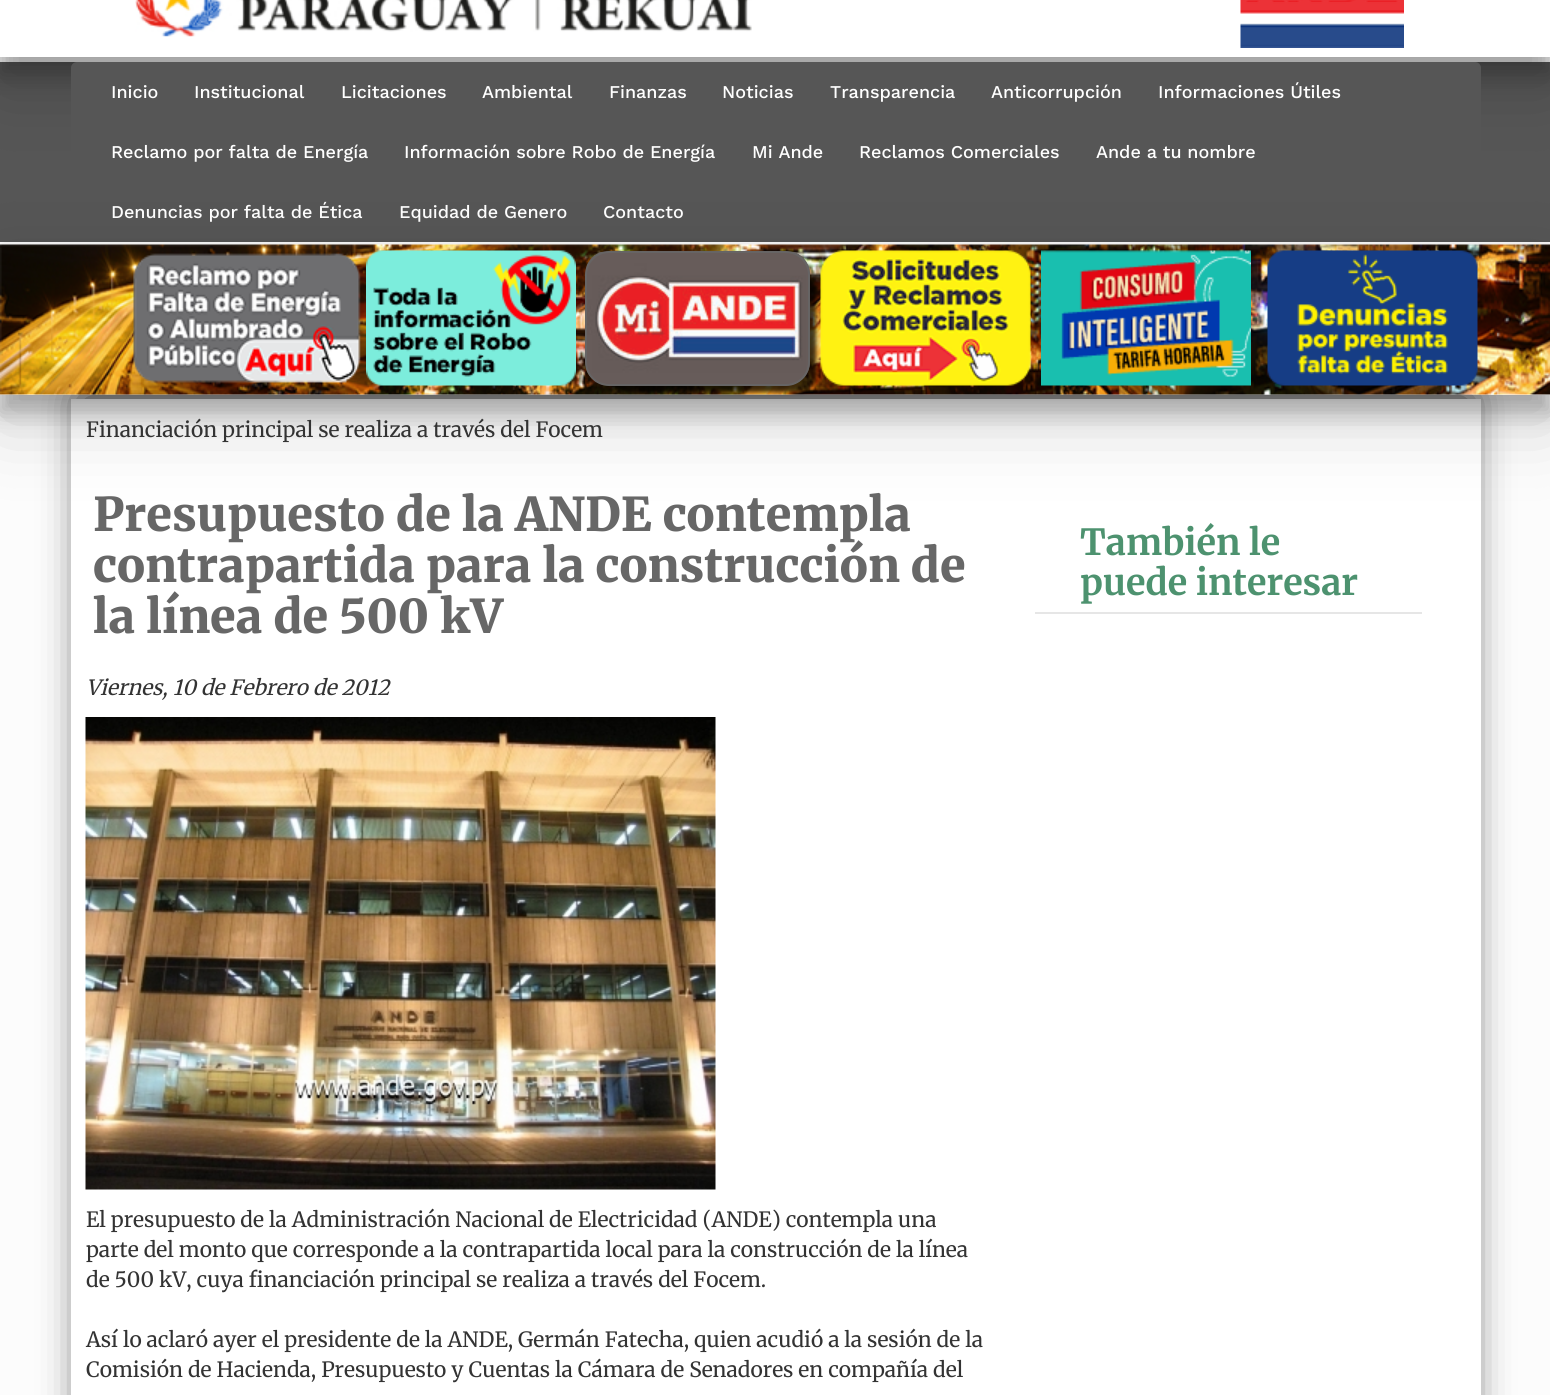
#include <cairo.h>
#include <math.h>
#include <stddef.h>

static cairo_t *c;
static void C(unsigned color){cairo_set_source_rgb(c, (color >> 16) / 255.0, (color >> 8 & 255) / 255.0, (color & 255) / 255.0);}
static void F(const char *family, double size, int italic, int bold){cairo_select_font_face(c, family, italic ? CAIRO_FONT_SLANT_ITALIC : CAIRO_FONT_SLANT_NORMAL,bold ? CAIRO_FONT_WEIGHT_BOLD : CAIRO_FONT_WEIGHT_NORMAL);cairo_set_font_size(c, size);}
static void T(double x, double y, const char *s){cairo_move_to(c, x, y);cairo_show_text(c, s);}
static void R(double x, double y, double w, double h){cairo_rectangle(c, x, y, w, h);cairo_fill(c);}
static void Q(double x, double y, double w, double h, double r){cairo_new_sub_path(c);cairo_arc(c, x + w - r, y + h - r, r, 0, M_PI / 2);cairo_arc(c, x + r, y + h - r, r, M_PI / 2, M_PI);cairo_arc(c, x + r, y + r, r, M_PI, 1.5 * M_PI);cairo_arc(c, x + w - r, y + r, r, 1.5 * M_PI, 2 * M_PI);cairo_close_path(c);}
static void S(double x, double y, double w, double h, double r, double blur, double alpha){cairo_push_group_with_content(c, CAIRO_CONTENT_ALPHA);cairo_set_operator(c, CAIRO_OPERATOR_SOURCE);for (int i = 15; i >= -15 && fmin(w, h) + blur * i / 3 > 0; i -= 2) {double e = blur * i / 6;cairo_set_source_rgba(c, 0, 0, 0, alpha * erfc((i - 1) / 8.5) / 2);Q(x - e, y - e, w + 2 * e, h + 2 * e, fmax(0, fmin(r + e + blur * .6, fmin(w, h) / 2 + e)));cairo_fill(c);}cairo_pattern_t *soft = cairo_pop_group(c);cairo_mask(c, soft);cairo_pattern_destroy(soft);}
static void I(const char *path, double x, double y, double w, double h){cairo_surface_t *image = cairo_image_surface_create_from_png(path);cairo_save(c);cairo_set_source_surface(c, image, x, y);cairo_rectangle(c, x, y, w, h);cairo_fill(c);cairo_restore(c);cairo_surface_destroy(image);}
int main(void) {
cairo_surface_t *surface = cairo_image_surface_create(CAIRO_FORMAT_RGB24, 1550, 1395);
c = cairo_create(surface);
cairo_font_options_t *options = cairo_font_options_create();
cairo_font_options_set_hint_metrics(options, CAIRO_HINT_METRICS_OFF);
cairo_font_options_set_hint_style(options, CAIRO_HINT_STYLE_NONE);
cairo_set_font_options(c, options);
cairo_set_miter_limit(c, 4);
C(0xfcfcfc);
cairo_paint(c);
C(0x565656);
R(0,62,1550,180);
C(0x000000);
S(0,-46,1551,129,0,37.5,.19);
S(0,-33,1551,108,0,11,.24);
C(0xffffff);
R(0,0,1550,57);
I("1.png",135,0,617,37);
I("2.png",1240,0,164,48);
C(0x565656);
Q(71,62,1410,180,6);
cairo_fill(c);
F("Work Sans Medium",18,0,0);
C(0xffffff);
T(111,98,"Inicio");
T(194,98,"Institucional");
T(341,98,"Licitaciones");
T(482,98,"Ambiental");
T(609,98,"Finanzas");
T(722,98,"Noticias");
T(830,98,"Transparencia");
T(991,98,"Anticorrupción");
T(1158,98,"Informaciones Útiles");
T(111,158,"Reclamo por falta de Energía");
T(404,158,"Información sobre Robo de Energía");
T(752,158,"Mi Ande");
T(859,158,"Reclamos Comerciales");
T(1096,158,"Ande a tu nombre");
T(111,218,"Denuncias por falta de Ética");
T(399,218,"Equidad de Genero");
T(603,218,"Contacto");
C(0x000000);
S(83,398,1386,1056,0,19.5,.75);
C(0xffffff);
R(71,399,1410,996);
cairo_save(c);
cairo_set_fill_rule(c,CAIRO_FILL_RULE_EVEN_ODD);
cairo_new_path(c);
cairo_move_to(c,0,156);
cairo_line_to(c,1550,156);
cairo_line_to(c,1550,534);
cairo_line_to(c,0,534);
cairo_close_path(c);
cairo_move_to(c,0,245);
cairo_line_to(c,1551,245);
cairo_line_to(c,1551,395);
cairo_line_to(c,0,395);
cairo_close_path(c);
cairo_clip(c);
C(0x000000);
S(0,270,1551,150,0,37.5,.19);
cairo_restore(c);
cairo_save(c);
cairo_set_fill_rule(c,CAIRO_FILL_RULE_EVEN_ODD);
cairo_new_path(c);
cairo_move_to(c,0,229);
cairo_line_to(c,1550,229);
cairo_line_to(c,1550,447);
cairo_line_to(c,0,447);
cairo_close_path(c);
cairo_move_to(c,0,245);
cairo_line_to(c,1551,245);
cairo_line_to(c,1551,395);
cairo_line_to(c,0,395);
cairo_close_path(c);
cairo_clip(c);
C(0x000000);
S(0,263,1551,150,0,11,.24);
cairo_restore(c);
I("3.png",0,244,1550,151);
I("4.png",133,253,228,130);
I("5.png",366,250,210,136);
C(0x000000);
S(609,275,207,117,15,2,.75);
I("6.png",586,252,224,134);
Q(586,252,223,133,23);
C(0x666464);
cairo_stroke(c);
I("7.png",820,250,211,136);
I("8.png",1041,250,210,136);
I("9.png",1267,250,211,136);
F("Merriweather",21,0,0);
C(0x333333);
T(86,437,"Financiación principal se realiza a través del Focem");
F("Merriweather Black",46.5,0,0);
C(0x676767);
T(93,531,"Presupuesto de la ANDE contempla");
T(93,582,"contrapartida para la construcción de");
T(93,633,"la línea de 500 kV");
F("Merriweather",21,1,0);
C(0x333333);
T(86,695,"Viernes, 10 de Febrero de 2012");
I("10.png",85,717,631,473);
F("Merriweather",21,0,0);
T(86,1227,"El presupuesto de la Administración Nacional de Electricidad (ANDE) contempla una");
T(86,1257,"parte del monto que corresponde a la contrapartida local para la construcción de la línea");
T(86,1287,"de 500 kV, cuya financiación principal se realiza a través del Focem.");
T(86,1347,"Así lo aclaró ayer el presidente de la ANDE, Germán Fatecha, quien acudió a la sesión de la");
T(86,1377,"Comisión de Hacienda, Presupuesto y Cuentas la Cámara de Senadores en compañía del");
F("Merriweather",36,0,1);
C(0x4d926f);
T(1080,555,"También le");
T(1080,595,"puede interesar");
C(0xe6e6e6);
R(1035,612,387,2);
cairo_surface_write_to_png(surface, "o.png");
cairo_font_options_destroy(options);
cairo_destroy(c);
cairo_surface_destroy(surface);
return 0;
}
